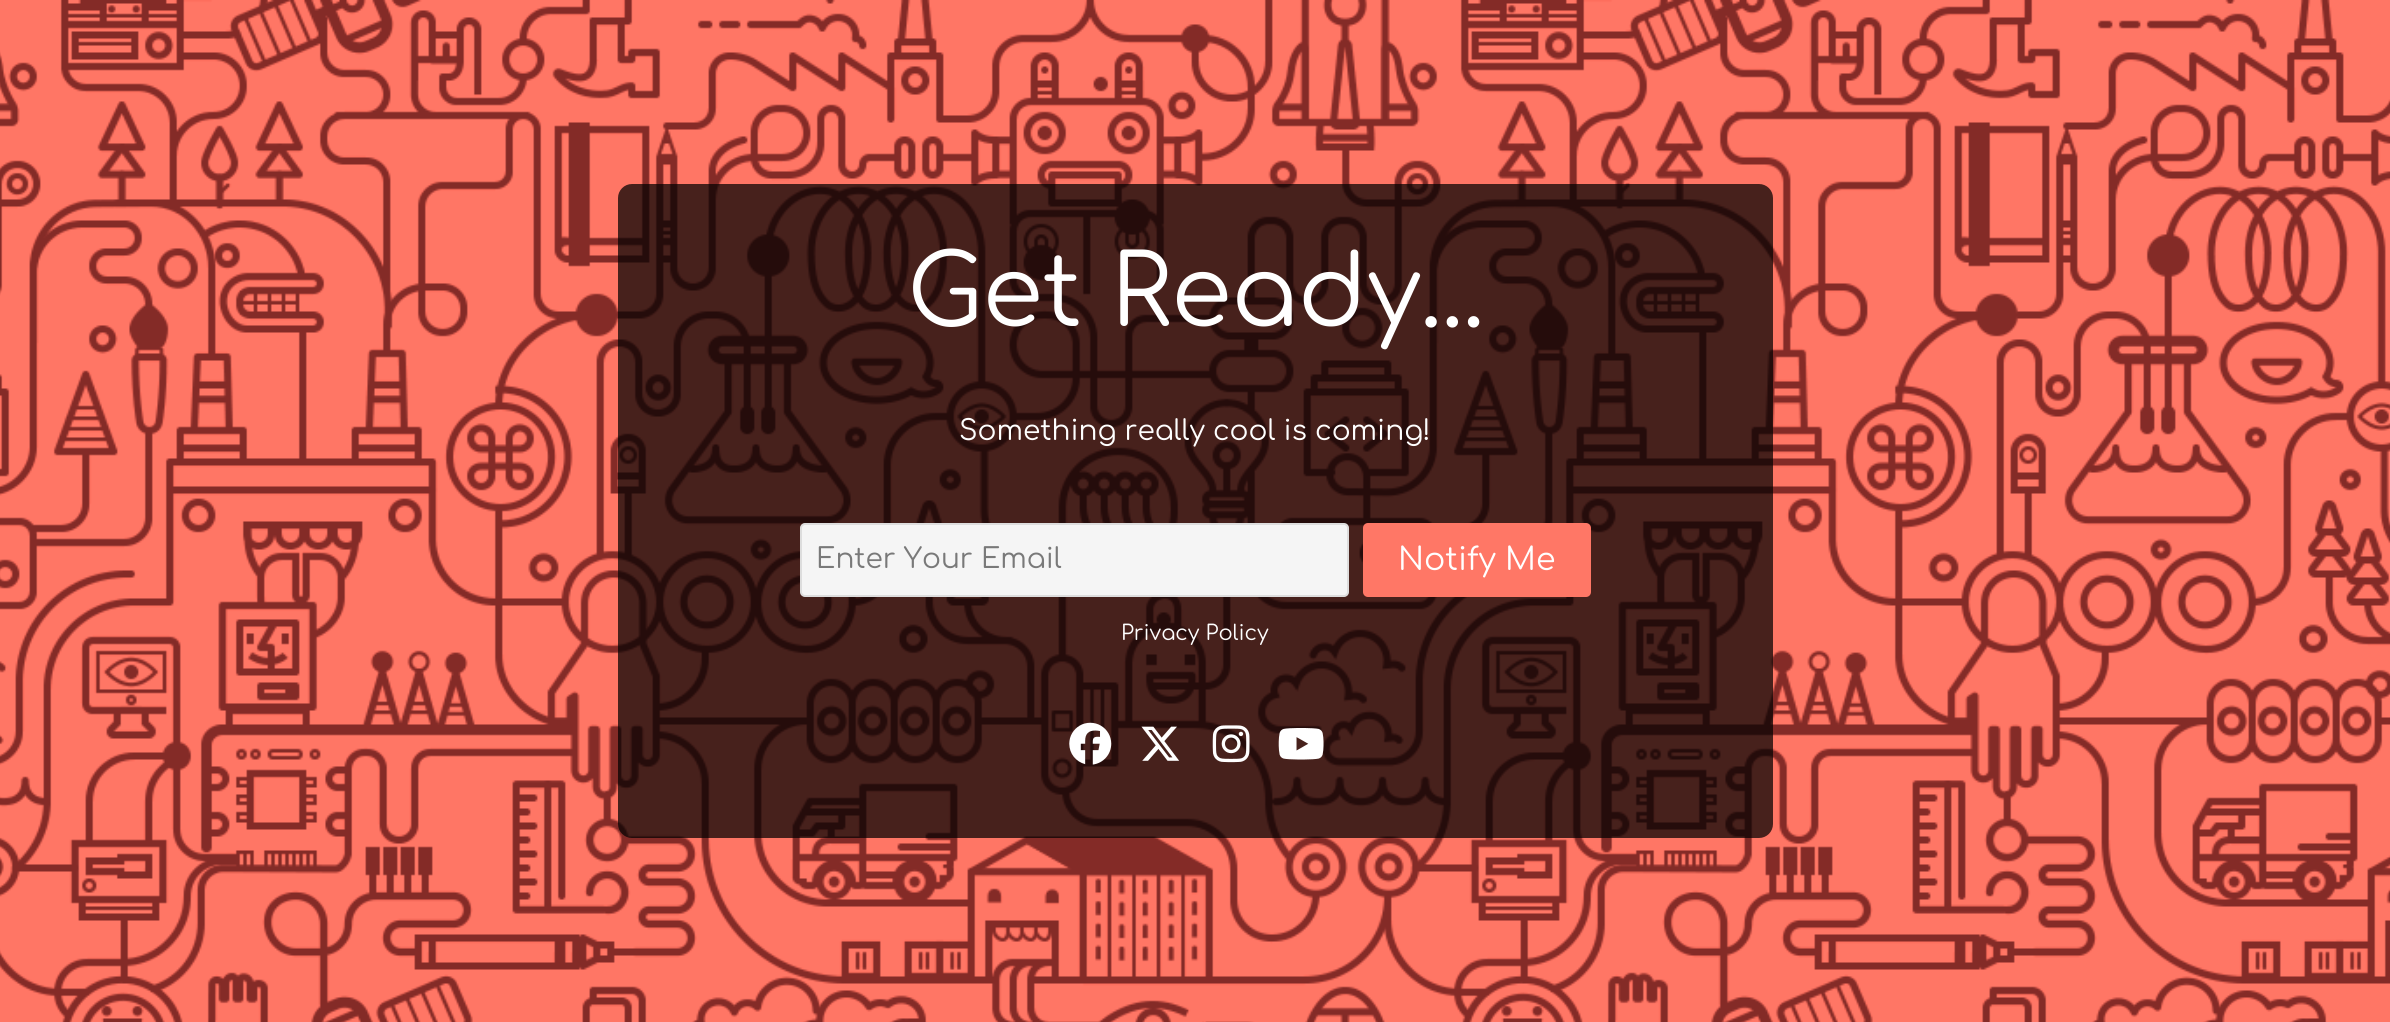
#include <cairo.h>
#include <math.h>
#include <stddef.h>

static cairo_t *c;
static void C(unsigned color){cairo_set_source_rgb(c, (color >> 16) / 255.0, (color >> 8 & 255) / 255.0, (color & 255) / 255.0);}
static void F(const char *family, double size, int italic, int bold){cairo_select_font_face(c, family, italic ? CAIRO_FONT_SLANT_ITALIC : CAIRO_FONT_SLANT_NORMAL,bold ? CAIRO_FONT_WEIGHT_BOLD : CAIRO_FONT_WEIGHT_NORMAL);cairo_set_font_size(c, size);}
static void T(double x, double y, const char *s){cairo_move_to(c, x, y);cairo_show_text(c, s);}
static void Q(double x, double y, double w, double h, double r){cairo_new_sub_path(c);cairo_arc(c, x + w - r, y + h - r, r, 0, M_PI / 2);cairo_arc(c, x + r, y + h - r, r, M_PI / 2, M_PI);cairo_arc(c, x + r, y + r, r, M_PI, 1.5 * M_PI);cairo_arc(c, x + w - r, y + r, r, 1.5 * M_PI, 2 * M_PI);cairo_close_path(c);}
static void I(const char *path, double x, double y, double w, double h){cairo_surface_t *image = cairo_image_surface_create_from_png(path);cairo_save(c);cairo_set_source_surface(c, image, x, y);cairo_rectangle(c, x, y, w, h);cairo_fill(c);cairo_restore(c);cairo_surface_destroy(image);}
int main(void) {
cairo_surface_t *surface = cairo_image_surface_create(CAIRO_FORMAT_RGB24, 2390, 1022);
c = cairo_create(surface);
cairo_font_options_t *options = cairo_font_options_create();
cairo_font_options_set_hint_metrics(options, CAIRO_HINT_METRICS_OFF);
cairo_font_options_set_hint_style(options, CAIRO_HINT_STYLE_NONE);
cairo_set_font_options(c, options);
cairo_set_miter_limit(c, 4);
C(0xffffff);
cairo_paint(c);
I("1.png",0,0,2390,1022);
cairo_set_source_rgba(c,0,0,0,0.72);
Q(618,184,1155,654,14);
cairo_fill(c);
F("Comfortaa",98,0,0);
C(0xffffff);
T(907,326,"Get Ready...");
F("Comfortaa",28,0,0);
T(959,440,"Something really cool is coming!");
C(0xf5f5f5);
Q(801,524,547,72,4);
cairo_fill_preserve(c);
C(0xdddddd);
cairo_stroke(c);
C(0x797979);
T(816,568,"Enter Your Email");
C(0xff7766);
Q(1363,523,228,74,5);
cairo_fill(c);
F("Comfortaa",31.5,0,0);
C(0xffffff);
T(1398,570,"Notify Me");
F("Comfortaa",21,0,0);
T(1121,640,"Privacy Policy");
I("2.png",1069,722,43,43);
I("3.png",1141,726,39,35);
I("4.png",1212,725,38,38);
I("5.png",1278,728,46,32);
cairo_surface_write_to_png(surface, "o.png");
cairo_font_options_destroy(options);
cairo_destroy(c);
cairo_surface_destroy(surface);
return 0;
}
